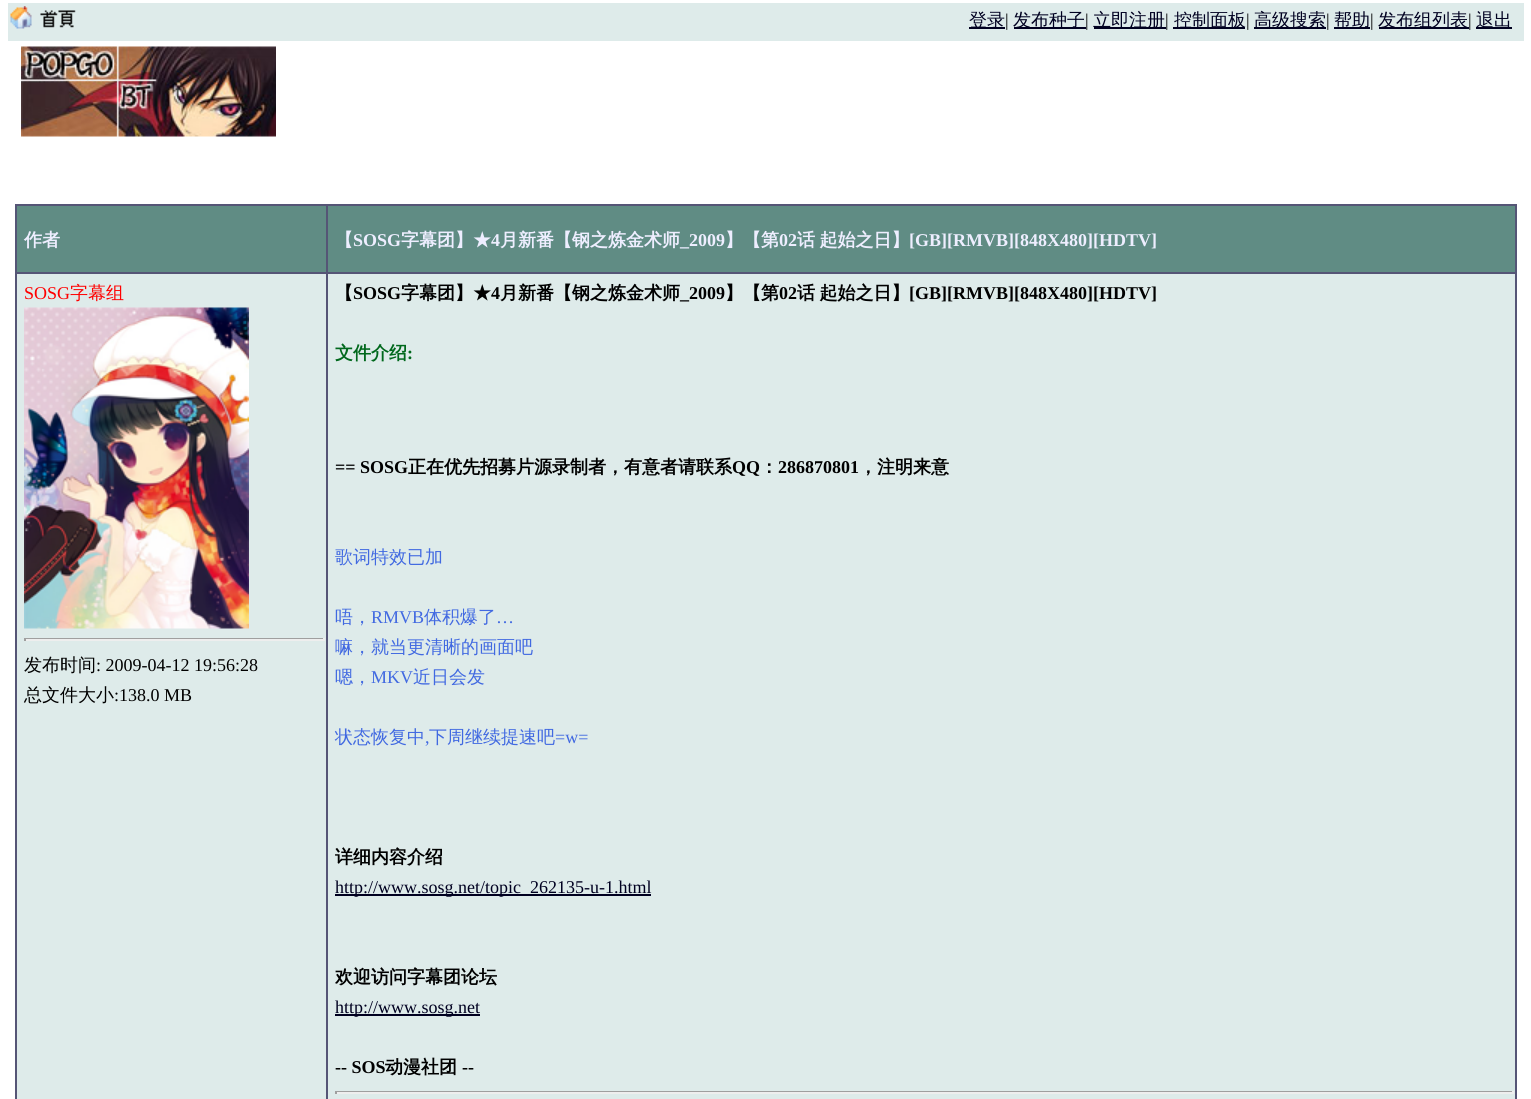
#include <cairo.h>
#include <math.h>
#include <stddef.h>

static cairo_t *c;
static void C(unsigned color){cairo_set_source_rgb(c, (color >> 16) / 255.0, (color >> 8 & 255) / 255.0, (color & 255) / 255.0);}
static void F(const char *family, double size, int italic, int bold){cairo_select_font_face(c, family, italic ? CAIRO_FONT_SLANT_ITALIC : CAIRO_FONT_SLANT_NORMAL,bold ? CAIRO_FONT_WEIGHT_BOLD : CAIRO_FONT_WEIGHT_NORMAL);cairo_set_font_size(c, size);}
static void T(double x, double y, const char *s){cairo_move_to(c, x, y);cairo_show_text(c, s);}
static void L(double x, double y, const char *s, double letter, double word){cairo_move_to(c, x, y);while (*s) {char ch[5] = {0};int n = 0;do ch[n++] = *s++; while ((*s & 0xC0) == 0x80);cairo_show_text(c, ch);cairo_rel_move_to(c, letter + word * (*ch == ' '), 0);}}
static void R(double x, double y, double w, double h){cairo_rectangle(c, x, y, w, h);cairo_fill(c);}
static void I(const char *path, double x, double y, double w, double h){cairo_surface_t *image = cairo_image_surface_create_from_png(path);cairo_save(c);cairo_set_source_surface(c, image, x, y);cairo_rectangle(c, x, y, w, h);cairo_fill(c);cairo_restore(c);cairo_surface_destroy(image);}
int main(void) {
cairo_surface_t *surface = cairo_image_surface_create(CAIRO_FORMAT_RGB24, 1531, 1099);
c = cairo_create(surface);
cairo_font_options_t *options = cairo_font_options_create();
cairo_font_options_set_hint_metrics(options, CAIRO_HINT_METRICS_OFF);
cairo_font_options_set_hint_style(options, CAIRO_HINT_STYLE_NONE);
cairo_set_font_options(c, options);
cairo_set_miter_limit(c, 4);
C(0xffffff);
cairo_paint(c);
C(0xdeebea);
R(8,3,1516,38);
I("1.png",10,6,66,23);
C(0x000020);
R(969,27,36,2);
F("WenQuanYi Zen Hei Medium",18,0,0);
T(969,26,"登录");
F("Liberation Serif",18,0,0);
C(0x000000);
T(1005,26,"|");
C(0x000020);
R(1014,27,72,2);
F("WenQuanYi Zen Hei Medium",18,0,0);
T(1013,26,"发布种子");
F("Liberation Serif",18,0,0);
C(0x000000);
T(1085,26,"|");
C(0x000020);
R(1094,27,72,2);
F("WenQuanYi Zen Hei Medium",18,0,0);
T(1093,26,"立即注册");
F("Liberation Serif",18,0,0);
C(0x000000);
T(1165,26,"|");
C(0x000020);
R(1173,27,72,2);
F("WenQuanYi Zen Hei Medium",18,0,0);
T(1174,26,"控制面板");
F("Liberation Serif",18,0,0);
C(0x000000);
T(1246,26,"|");
C(0x000020);
R(1254,27,72,2);
F("WenQuanYi Zen Hei Medium",18,0,0);
T(1254,26,"高级搜索");
F("Liberation Serif",18,0,0);
C(0x000000);
T(1326,26,"|");
C(0x000020);
R(1334,27,36,2);
F("WenQuanYi Zen Hei Medium",18,0,0);
T(1334,26,"帮助");
F("Liberation Serif",18,0,0);
C(0x000000);
T(1370,26,"|");
C(0x000020);
R(1379,27,90,2);
F("WenQuanYi Zen Hei Medium",18,0,0);
T(1378,26,"发布组列表");
F("Liberation Serif",18,0,0);
C(0x000000);
T(1468,26,"|");
C(0x000020);
R(1476,27,36,2);
F("WenQuanYi Zen Hei Medium",18,0,0);
T(1476,26,"退出");
I("2.png",21,46,255,91);
C(0xdeebea);
R(17,274,1498,825);
C(0x608c84);
R(17,206,1498,66);
C(0x555576);
R(326,204,1191,2);
R(326,272,1191,2);
R(326,272,2,827);
R(15,272,312,2);
R(326,204,2,69);
R(15,204,312,2);
R(15,272,2,827);
R(15,204,2,69);
F("WenQuanYi Zen Hei",18,0,1);
C(0xeeeeff);
T(24,246,"作者");
C(0x555576);
R(1515,272,2,827);
R(1515,204,2,69);
C(0xeeeeff);
T(335,246,"【");
F("Liberation Serif",18,0,1);
T(353,246,"SOSG");
F("WenQuanYi Zen Hei",18,0,1);
T(401,246,"字幕团】★");
F("Liberation Serif",18,0,1);
T(491,246,"4");
F("WenQuanYi Zen Hei",18,0,1);
T(500,246,"月新番【钢之炼金术师");
F("Liberation Serif",18,0,1);
T(680,246,"_2009");
F("WenQuanYi Zen Hei",18,0,1);
T(725,246,"】【第");
F("Liberation Serif",18,0,1);
T(779,246,"02");
F("WenQuanYi Zen Hei",18,0,1);
L(797,246,"话 起始之日】",0,-1);
F("Liberation Serif",18,0,1);
T(909,246,"[GB][RMVB][848X480][HDTV]");
F("Liberation Serif",18,0,0);
C(0xff0000);
T(24,299,"SOSG");
F("WenQuanYi Zen Hei Medium",18,0,0);
T(70,299,"字幕组");
I("3.png",24,307,225,322);
C(0x9f9f9f);
R(24,638,300,1);
C(0xeeeeee);
R(323,638,2,3);
R(24,639,300,2);
C(0x9f9f9f);
R(24,638,2,3);
C(0x000000);
T(24,671,"发布时间");
F("Liberation Serif",18,0,0);
T(96,671,": 2009-04-12 19:56:28");
F("WenQuanYi Zen Hei Medium",18,0,0);
T(24,701,"总文件大小");
F("Liberation Serif",18,0,0);
T(114,701,":138.0 MB");
F("WenQuanYi Zen Hei",18,0,1);
T(335,299,"【");
F("Liberation Serif",18,0,1);
T(353,299,"SOSG");
F("WenQuanYi Zen Hei",18,0,1);
T(401,299,"字幕团】★");
F("Liberation Serif",18,0,1);
T(491,299,"4");
F("WenQuanYi Zen Hei",18,0,1);
T(500,299,"月新番【钢之炼金术师");
F("Liberation Serif",18,0,1);
T(680,299,"_2009");
F("WenQuanYi Zen Hei",18,0,1);
T(725,299,"】【第");
F("Liberation Serif",18,0,1);
T(779,299,"02");
F("WenQuanYi Zen Hei",18,0,1);
L(797,299,"话 起始之日】",0,-1);
F("Liberation Serif",18,0,1);
T(909,299,"[GB][RMVB][848X480][HDTV]");
F("WenQuanYi Zen Hei",18,0,1);
C(0x00681c);
T(335,359,"文件介绍");
F("Liberation Serif",18,0,1);
T(407,359,":");
C(0x000000);
T(335,473,"== SOSG");
F("WenQuanYi Zen Hei",18,0,1);
T(408,473,"正在优先招募片源录制者，有意者请联系");
F("Liberation Serif",18,0,1);
T(732,473,"QQ");
F("WenQuanYi Zen Hei",18,0,1);
T(760,473,"：");
F("Liberation Serif",18,0,1);
T(778,473,"286870801");
F("WenQuanYi Zen Hei",18,0,1);
T(859,473,"，注明来意");
F("WenQuanYi Zen Hei Medium",18,0,0);
C(0x4169e1);
T(335,563,"歌词特效已加");
T(335,623,"唔，");
F("Liberation Serif",18,0,0);
T(371,623,"RMVB");
F("WenQuanYi Zen Hei Medium",18,0,0);
T(424,623,"体积爆了");
F("Liberation Serif",18,0,0);
T(496,623,"…");
F("WenQuanYi Zen Hei Medium",18,0,0);
T(335,653,"嘛，就当更清晰的画面吧");
T(335,683,"嗯，");
F("Liberation Serif",18,0,0);
T(371,683,"MKV");
F("WenQuanYi Zen Hei Medium",18,0,0);
T(413,683,"近日会发");
T(335,743,"状态恢复中");
F("Liberation Serif",18,0,0);
T(425,743,",");
F("WenQuanYi Zen Hei Medium",18,0,0);
T(429,743,"下周继续提速吧");
F("Liberation Serif",18,0,0);
T(555,743,"=w=");
F("WenQuanYi Zen Hei",18,0,1);
C(0x000000);
T(335,863,"详细内容介绍");
C(0x000020);
R(335,894,316,2);
F("Liberation Serif",18,0,0);
T(335,893,"http://www.sosg.net/topic_262135-u-1.html");
F("WenQuanYi Zen Hei",18,0,1);
C(0x000000);
T(335,983,"欢迎访问字幕团论坛");
C(0x000020);
R(335,1014,145,2);
F("Liberation Serif",18,0,0);
T(335,1013,"http://www.sosg.net");
F("Liberation Serif",18,0,1);
C(0x000000);
T(335,1073,"-- SOS");
F("WenQuanYi Zen Hei",18,0,1);
T(385,1073,"动漫社团");
F("Liberation Serif",18,0,1);
T(462,1073,"--");
C(0x9f9f9f);
R(335,1091,1179,1);
C(0xeeeeee);
R(1512,1091,2,3);
R(335,1092,1179,2);
C(0x9f9f9f);
R(335,1091,2,3);
cairo_surface_write_to_png(surface, "o.png");
cairo_font_options_destroy(options);
cairo_destroy(c);
cairo_surface_destroy(surface);
return 0;
}
